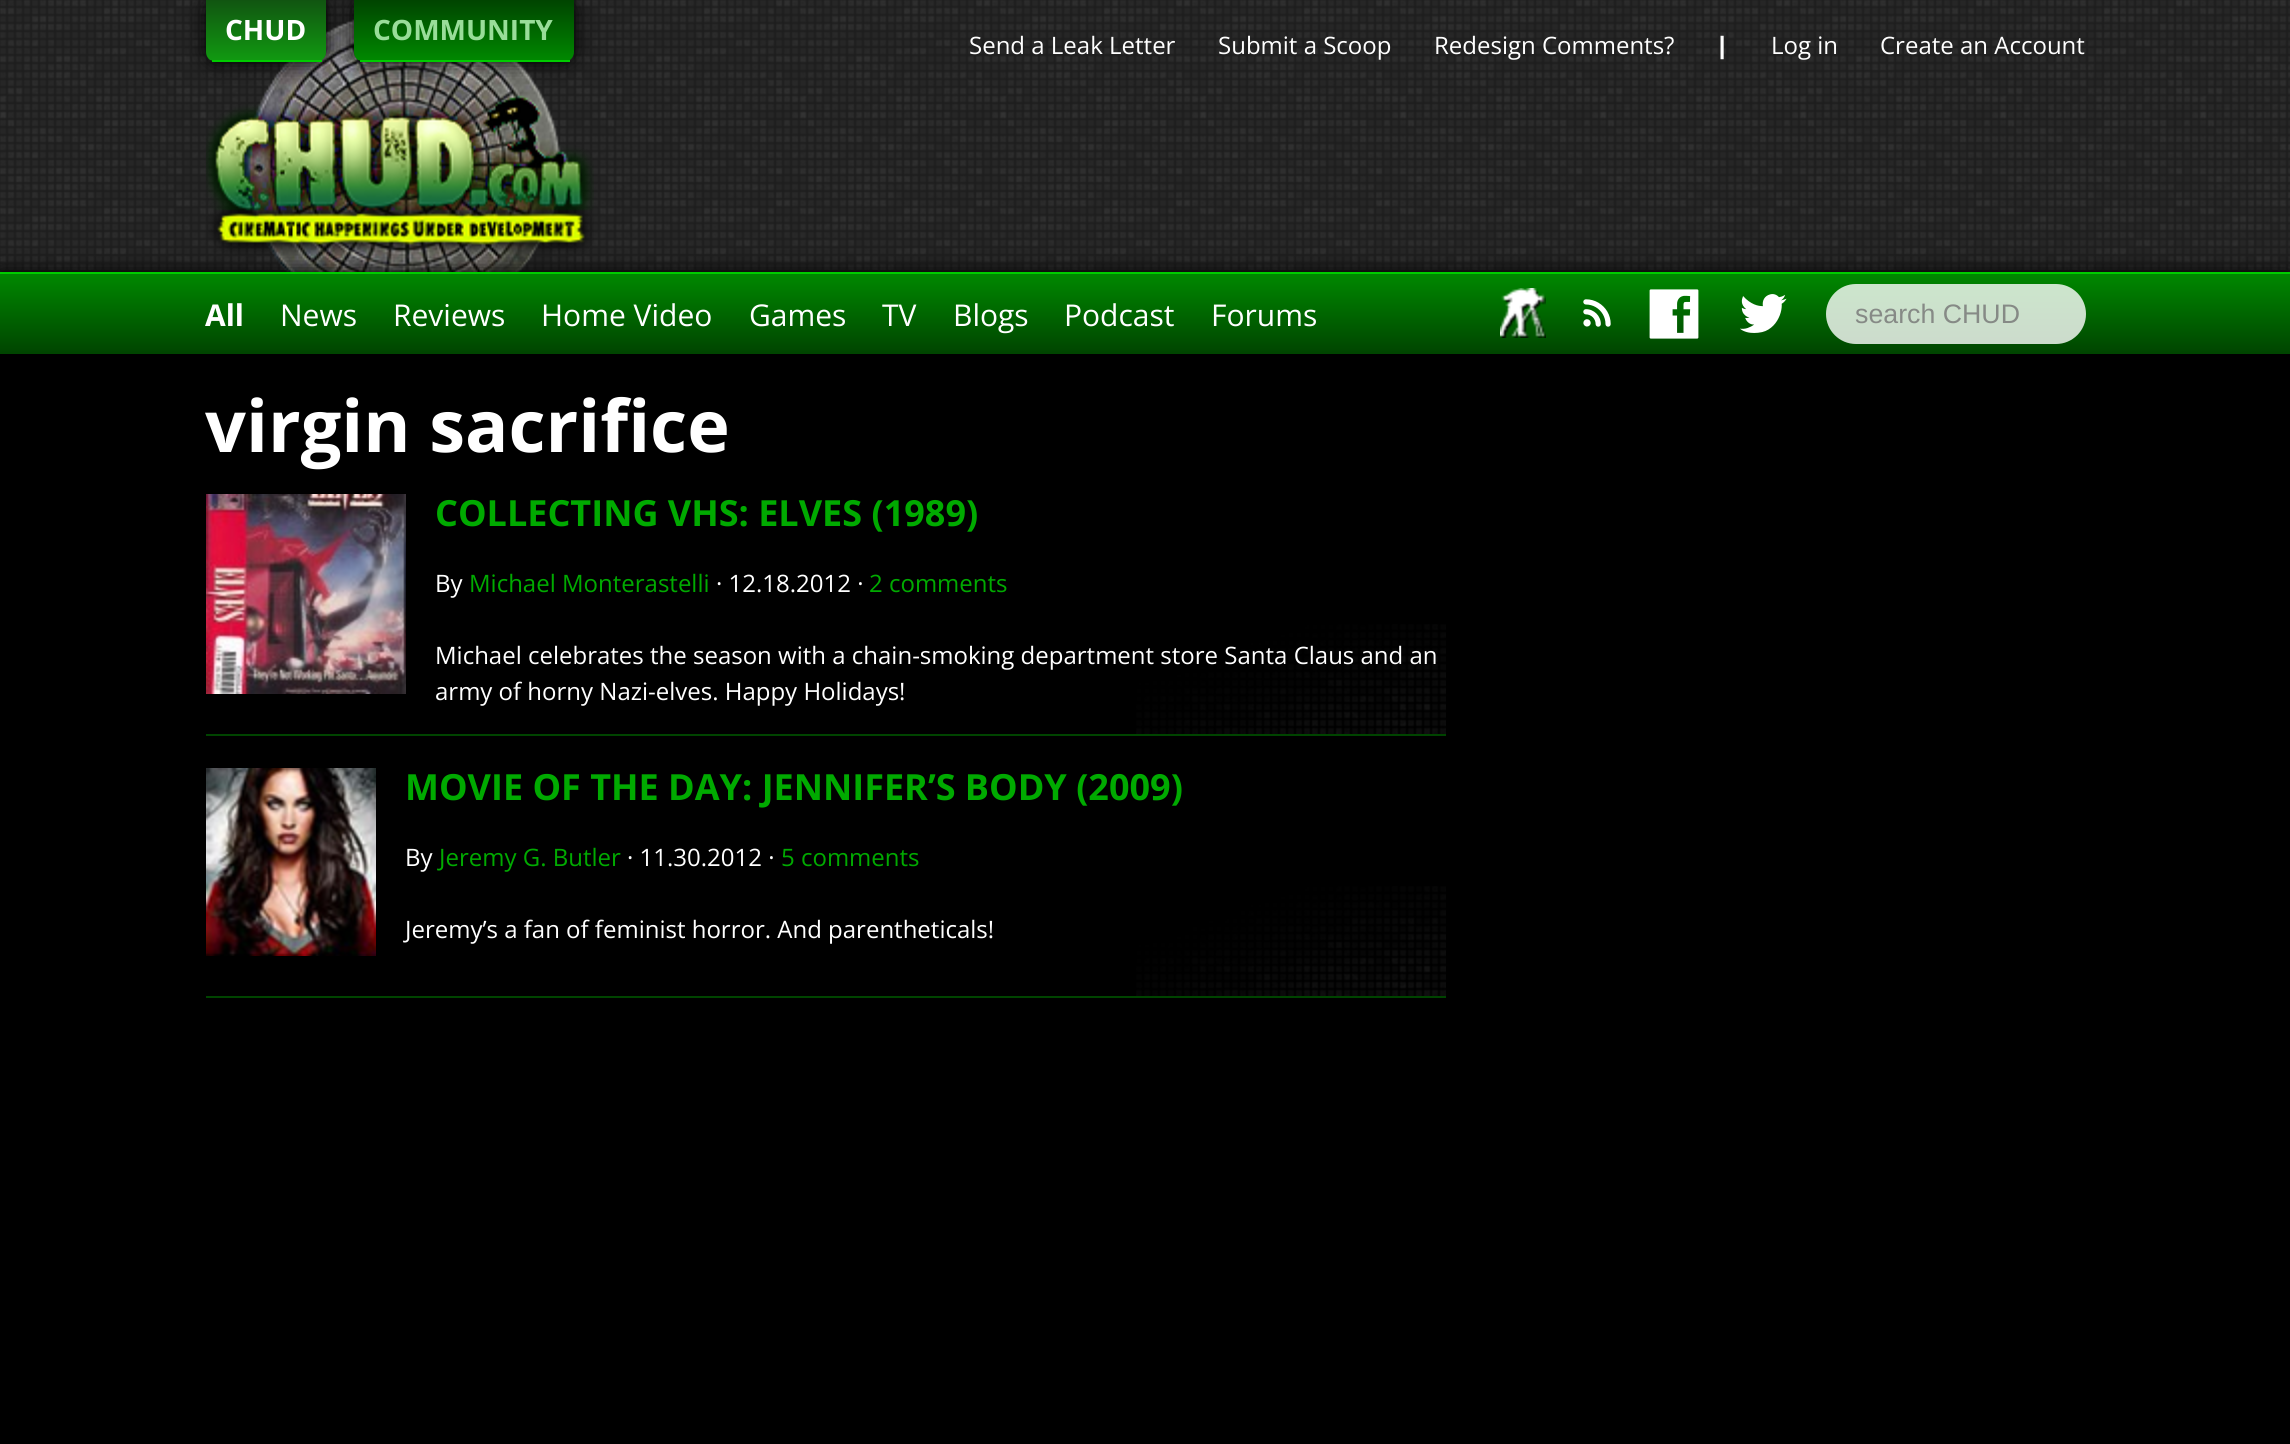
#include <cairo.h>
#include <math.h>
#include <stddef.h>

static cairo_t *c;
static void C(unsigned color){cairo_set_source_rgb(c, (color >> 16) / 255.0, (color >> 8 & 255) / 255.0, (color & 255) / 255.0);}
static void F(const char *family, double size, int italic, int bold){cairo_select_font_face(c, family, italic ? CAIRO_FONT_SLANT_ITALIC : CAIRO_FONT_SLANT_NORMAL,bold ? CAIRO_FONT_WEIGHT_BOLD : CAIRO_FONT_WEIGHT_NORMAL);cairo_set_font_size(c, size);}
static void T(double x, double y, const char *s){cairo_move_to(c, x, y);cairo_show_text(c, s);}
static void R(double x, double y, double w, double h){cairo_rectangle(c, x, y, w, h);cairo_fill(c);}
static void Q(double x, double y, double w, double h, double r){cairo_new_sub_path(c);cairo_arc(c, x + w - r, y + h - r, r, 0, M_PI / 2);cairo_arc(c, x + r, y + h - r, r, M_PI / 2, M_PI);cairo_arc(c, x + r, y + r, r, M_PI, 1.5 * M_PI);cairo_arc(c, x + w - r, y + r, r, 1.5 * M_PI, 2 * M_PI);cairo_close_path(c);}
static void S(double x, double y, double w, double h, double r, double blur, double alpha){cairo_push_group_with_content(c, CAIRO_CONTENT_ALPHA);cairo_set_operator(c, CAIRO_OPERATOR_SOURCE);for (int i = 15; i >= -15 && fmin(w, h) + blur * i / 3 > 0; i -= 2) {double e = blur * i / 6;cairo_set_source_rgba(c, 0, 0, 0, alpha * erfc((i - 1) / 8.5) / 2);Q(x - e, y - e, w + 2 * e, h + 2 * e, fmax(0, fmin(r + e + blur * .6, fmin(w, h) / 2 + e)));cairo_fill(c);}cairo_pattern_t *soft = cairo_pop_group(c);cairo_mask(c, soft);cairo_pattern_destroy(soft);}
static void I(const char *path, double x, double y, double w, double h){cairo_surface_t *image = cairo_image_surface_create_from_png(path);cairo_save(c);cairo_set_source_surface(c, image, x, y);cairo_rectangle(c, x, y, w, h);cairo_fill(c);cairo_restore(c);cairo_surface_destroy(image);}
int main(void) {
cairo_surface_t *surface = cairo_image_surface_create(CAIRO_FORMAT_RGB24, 2290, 1444);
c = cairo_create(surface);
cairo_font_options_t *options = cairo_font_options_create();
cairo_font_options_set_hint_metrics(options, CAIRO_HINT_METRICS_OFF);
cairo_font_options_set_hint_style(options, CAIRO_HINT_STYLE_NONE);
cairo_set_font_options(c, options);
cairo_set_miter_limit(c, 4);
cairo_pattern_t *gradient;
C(0x000000);
cairo_paint(c);
C(0x1e1e1e);
R(0,270,2290,2);
I("1.png",0,0,2290,270);
I("2.png",206,19,388,253);
C(0x000000);
S(206,0,120,62,10,10,1);
cairo_save(c);
cairo_new_path(c);
cairo_move_to(c,206,0);
cairo_line_to(c,326,0);
cairo_line_to(c,326,52);
cairo_curve_to(c,326,57.5,321.5,62,316,62);
cairo_line_to(c,216,62);
cairo_curve_to(c,210.5,62,206,57.5,206,52);
cairo_close_path(c);
cairo_clip(c);
gradient = cairo_pattern_create_linear(206,60,206,0);
cairo_pattern_add_color_stop_rgba(gradient,0,0.067,0.6,0.067,1);
cairo_pattern_add_color_stop_rgba(gradient,1,0.067,0.333,0.067,1);
cairo_set_source(c,gradient);
cairo_pattern_destroy(gradient);
R(206,0,120,60);
gradient = cairo_pattern_create_linear(206,120,206,60);
cairo_pattern_add_color_stop_rgba(gradient,0,0.067,0.6,0.067,1);
cairo_pattern_add_color_stop_rgba(gradient,1,0.067,0.333,0.067,1);
cairo_set_source(c,gradient);
cairo_pattern_destroy(gradient);
R(206,60,6,1);
cairo_restore(c);
C(0x00cc00);
R(212,60,110,2);
F("Open Sans",28,0,1);
C(0xffffff);
T(225,40,"CHUD");
C(0x000000);
S(354,0,220,62,10,10,1);
cairo_save(c);
cairo_new_path(c);
cairo_move_to(c,354,0);
cairo_line_to(c,574,0);
cairo_line_to(c,574,52);
cairo_curve_to(c,574,57.5,569.5,62,564,62);
cairo_line_to(c,364,62);
cairo_curve_to(c,358.5,62,354,57.5,354,52);
cairo_close_path(c);
cairo_clip(c);
gradient = cairo_pattern_create_linear(354,60,354,0);
cairo_pattern_add_color_stop_rgba(gradient,0,0,0.533,0,1);
cairo_pattern_add_color_stop_rgba(gradient,1,0,0.267,0,1);
cairo_set_source(c,gradient);
cairo_pattern_destroy(gradient);
R(354,0,220,60);
gradient = cairo_pattern_create_linear(354,120,354,60);
cairo_pattern_add_color_stop_rgba(gradient,0,0,0.533,0,1);
cairo_pattern_add_color_stop_rgba(gradient,1,0,0.267,0,1);
cairo_set_source(c,gradient);
cairo_pattern_destroy(gradient);
R(354,60,6,1);
cairo_restore(c);
C(0x00cc00);
R(360,60,210,2);
C(0x99dd99);
T(373,40,"COMMUNITY");
F("Open Sans",24,0,0);
C(0xffffff);
T(969,54,"Send a Leak Letter");
T(1218,54,"Submit a Scoop");
T(1434,54,"Redesign Comments?");
F("Open Sans ExtraBold",24,0,0);
T(1716,54,"|");
F("Open Sans",24,0,0);
T(1771,54,"Log in");
T(1880,54,"Create an Account");
C(0x000000);
S(0,272,2290,82,0,10,1);
gradient = cairo_pattern_create_linear(0,354,0,274);
cairo_pattern_add_color_stop_rgba(gradient,0,0,0.267,0,1);
cairo_pattern_add_color_stop_rgba(gradient,1,0,0.533,0,1);
cairo_set_source(c,gradient);
cairo_pattern_destroy(gradient);
R(0,274,2290,80);
C(0x00cc00);
R(0,272,2290,2);
F("Open Sans",30,0,1);
C(0xffffff);
T(205,326,"All");
F("Open Sans",30,0,0);
T(280,326,"News");
T(393,326,"Reviews");
T(541,326,"Home Video");
T(749,326,"Games");
T(882,326,"TV");
T(953,326,"Blogs");
T(1064,326,"Podcast");
T(1211,326,"Forums");
I("3.png",1500,288,46,50);
I("4.png",1583,299,28,28);
I("5.png",1649,289,50,50);
I("6.png",1740,294,47,39);
cairo_set_source_rgba(c,1,1,1,0.8);
Q(1826,284,260,60,30);
cairo_fill(c);
F("Liberation Sans",26.75,0,0);
C(0x868a86);
T(1855,323,"search CHUD");
F("Open Sans",72,0,1);
C(0xffffff);
T(205,452,"virgin sacrifice");
I("7.png",1136,624,310,110);
C(0x004400);
R(206,734,1240,2);
I("8.png",206,494,200,200);
F("Open Sans",36,0,1);
C(0x00aa00);
T(435,526,"COLLECTING VHS: ELVES (1989)");
F("Open Sans",24,0,0);
C(0xffffff);
T(435,592,"By");
C(0x00aa00);
T(469,592,"Michael Monterastelli");
C(0xffffff);
T(716,592,"· 12.18.2012 ·");
C(0x00aa00);
T(869,592,"2 comments");
C(0xffffff);
T(435,664,"Michael celebrates the season with a chain-smoking department store Santa Claus and an");
T(435,700,"army of horny Nazi-elves. Happy Holidays!");
I("7.png",1136,886,310,110);
C(0x004400);
R(206,996,1240,2);
I("9.png",206,768,170,188);
F("Open Sans",36,0,1);
C(0x00aa00);
T(405,800,"MOVIE OF THE DAY: JENNIFER’S BODY (2009)");
F("Open Sans",24,0,0);
C(0xffffff);
T(405,866,"By");
C(0x00aa00);
T(439,866,"Jeremy G. Butler");
C(0xffffff);
T(627,866,"· 11.30.2012 ·");
C(0x00aa00);
T(781,866,"5 comments");
C(0xffffff);
T(405,938,"Jeremy’s a fan of feminist horror. And parentheticals!");
cairo_surface_write_to_png(surface, "o.png");
cairo_font_options_destroy(options);
cairo_destroy(c);
cairo_surface_destroy(surface);
return 0;
}
